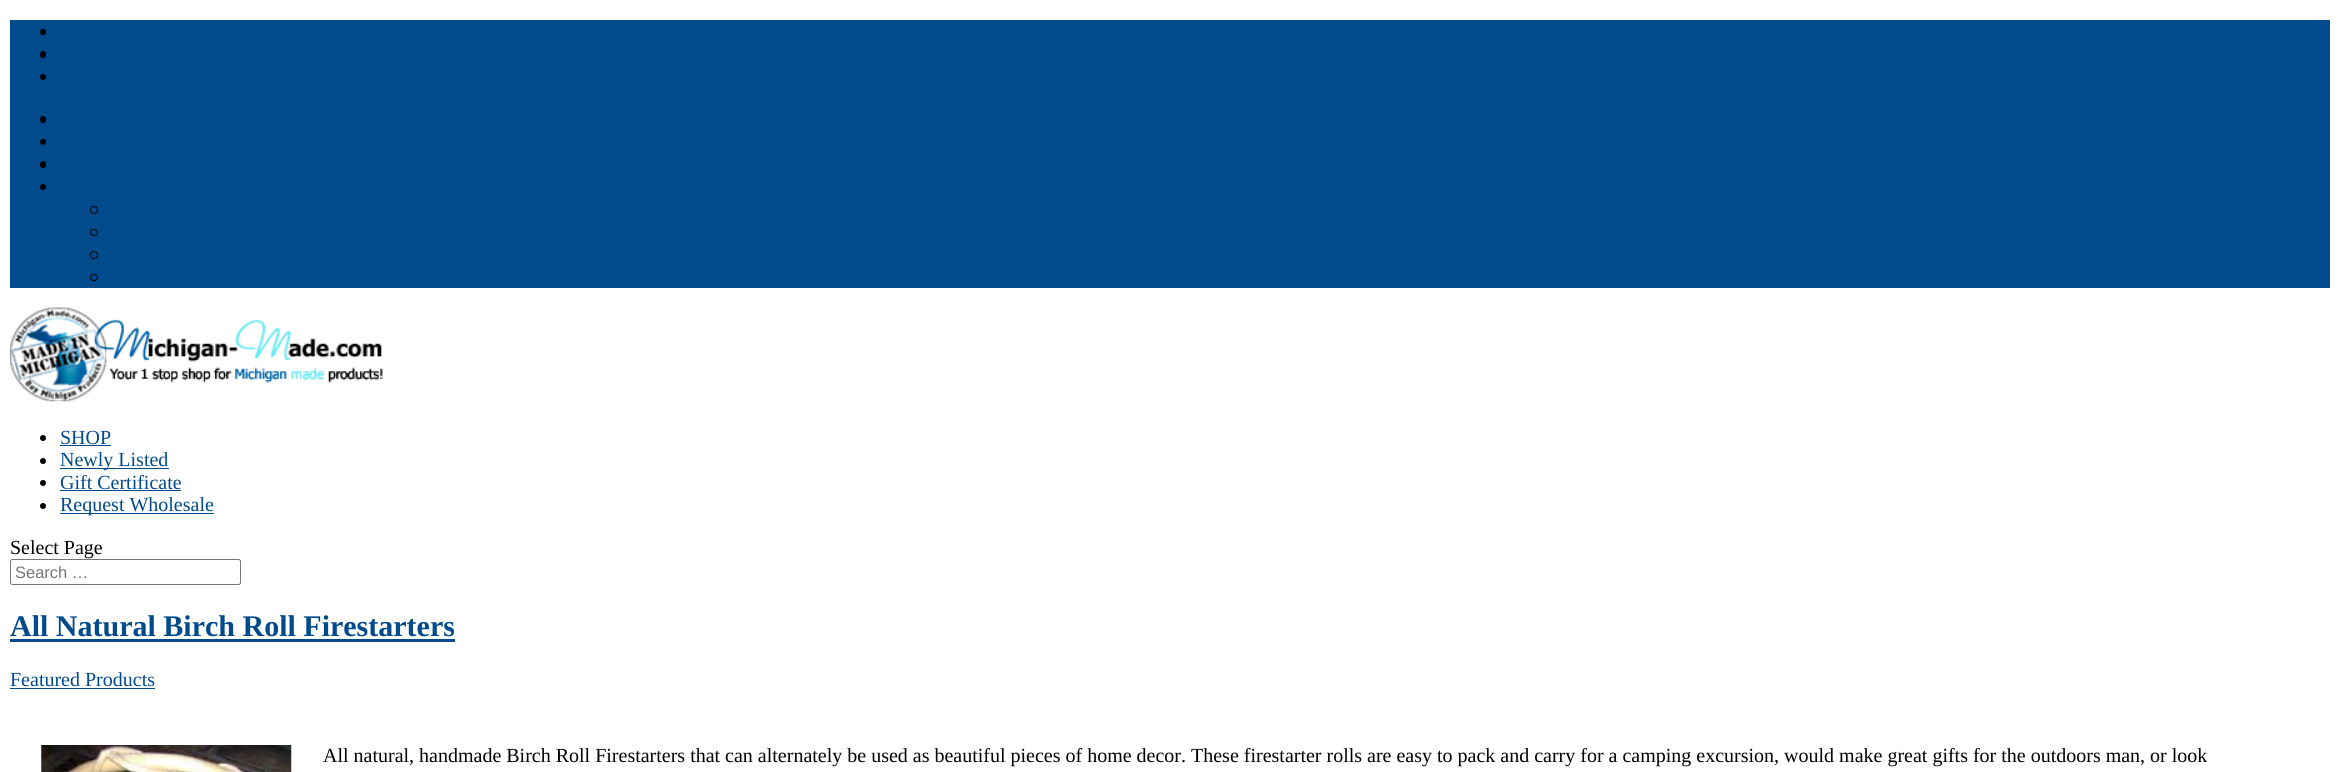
#include <cairo.h>
#include <math.h>
#include <stddef.h>

static cairo_t *c;
static void C(unsigned color){cairo_set_source_rgb(c, (color >> 16) / 255.0, (color >> 8 & 255) / 255.0, (color & 255) / 255.0);}
static void F(const char *family, double size, int italic, int bold){cairo_select_font_face(c, family, italic ? CAIRO_FONT_SLANT_ITALIC : CAIRO_FONT_SLANT_NORMAL,bold ? CAIRO_FONT_WEIGHT_BOLD : CAIRO_FONT_WEIGHT_NORMAL);cairo_set_font_size(c, size);}
static void T(double x, double y, const char *s){cairo_move_to(c, x, y);cairo_show_text(c, s);}
static void R(double x, double y, double w, double h){cairo_rectangle(c, x, y, w, h);cairo_fill(c);}
static void Q(double x, double y, double w, double h, double r){cairo_new_sub_path(c);cairo_arc(c, x + w - r, y + h - r, r, 0, M_PI / 2);cairo_arc(c, x + r, y + h - r, r, M_PI / 2, M_PI);cairo_arc(c, x + r, y + r, r, M_PI, 1.5 * M_PI);cairo_arc(c, x + w - r, y + r, r, 1.5 * M_PI, 2 * M_PI);cairo_close_path(c);}
static void I(const char *path, double x, double y, double w, double h){cairo_surface_t *image = cairo_image_surface_create_from_png(path);cairo_save(c);cairo_set_source_surface(c, image, x, y);cairo_rectangle(c, x, y, w, h);cairo_fill(c);cairo_restore(c);cairo_surface_destroy(image);}
int main(void) {
cairo_surface_t *surface = cairo_image_surface_create(CAIRO_FORMAT_RGB24, 2340, 772);
c = cairo_create(surface);
cairo_font_options_t *options = cairo_font_options_create();
cairo_font_options_set_hint_metrics(options, CAIRO_HINT_METRICS_OFF);
cairo_font_options_set_hint_style(options, CAIRO_HINT_STYLE_NONE);
cairo_set_font_options(c, options);
cairo_set_miter_limit(c, 4);
C(0xffffff);
cairo_paint(c);
C(0x014b8c);
R(10,20,2320,268);
C(0x000000);
cairo_arc(c,43,32,3,0,2 * M_PI);
cairo_fill(c);
Q(40,51,6,7,3);
cairo_fill(c);
cairo_arc(c,43,77,3,0,2 * M_PI);
cairo_fill(c);
Q(40,116,6,7,3);
cairo_fill(c);
cairo_arc(c,43,142,3,0,2 * M_PI);
cairo_fill(c);
Q(40,161,6,7,3);
cairo_fill(c);
cairo_arc(c,43,187,3,0,2 * M_PI);
cairo_fill(c);
cairo_arc(c,94,210,3.5,0,2 * M_PI);
cairo_set_line_width(c,1);
cairo_stroke(c);
Q(90.5,229.5,7,6,3);
cairo_stroke(c);
cairo_arc(c,94,255,3.5,0,2 * M_PI);
cairo_stroke(c);
Q(90.5,274.5,7,6,3);
cairo_stroke(c);
I("1.png",10,307,373,95);
cairo_arc(c,43,438,3,0,2 * M_PI);
cairo_fill(c);
F("Liberation Serif",20,0,0);
C(0x014b8c);
T(60,444,"SHOP");
R(60,445,51,1);
C(0x000000);
cairo_new_path(c);
cairo_arc(c,43,461,3,0,2 * M_PI);
cairo_fill(c);
C(0x014b8c);
R(60,468,109,1);
T(60,466,"Newly Listed");
C(0x000000);
cairo_new_path(c);
cairo_arc(c,43,483,3,0,2 * M_PI);
cairo_fill(c);
C(0x014b8c);
T(60,489,"Gift Certificate");
R(60,490,121,1);
C(0x000000);
cairo_new_path(c);
cairo_arc(c,43,506,3,0,2 * M_PI);
cairo_fill(c);
C(0x014b8c);
R(60,513,154,1);
T(60,511,"Request Wholesale");
C(0x000000);
T(10,554,"Select Page");
Q(10.5,559.5,230,25,2);
C(0x767676);
cairo_stroke(c);
F("Liberation Sans",16.5,0,0);
C(0x757575);
T(15,578,"Search …");
F("Liberation Serif",30,0,1);
C(0x014b8c);
T(10,636,"All Natural Birch Roll Firestarters");
R(10,639,445,3);
F("Liberation Serif",20,0,0);
T(10,686,"Featured Products");
R(10,688,145,1);
I("2.png",41,745,251,27);
C(0x000000);
T(323,762,"All natural, handmade Birch Roll Firestarters that can alternately be used as beautiful pieces of home decor. These firestarter rolls are easy to pack and carry for a camping excursion, would make great gifts for the outdoors man, or look");
cairo_surface_write_to_png(surface, "o.png");
cairo_font_options_destroy(options);
cairo_destroy(c);
cairo_surface_destroy(surface);
return 0;
}
